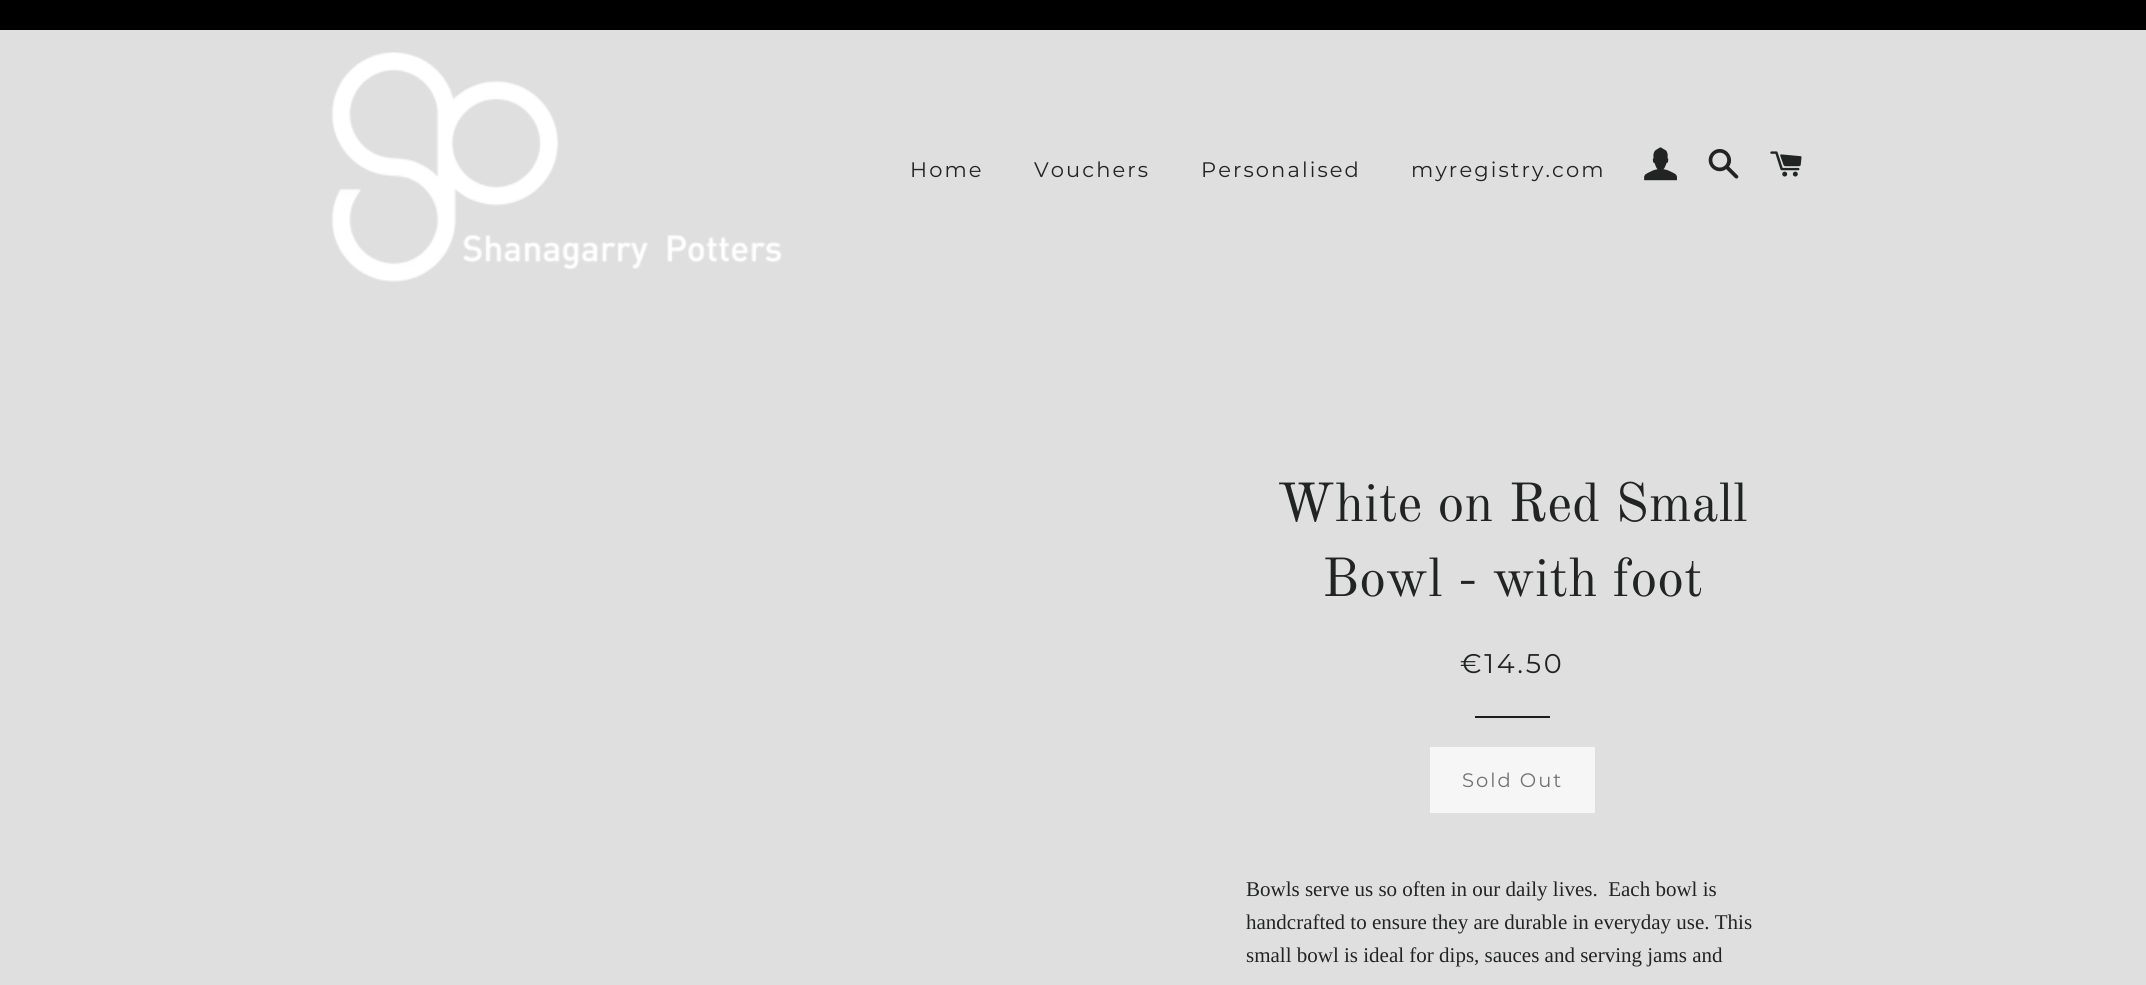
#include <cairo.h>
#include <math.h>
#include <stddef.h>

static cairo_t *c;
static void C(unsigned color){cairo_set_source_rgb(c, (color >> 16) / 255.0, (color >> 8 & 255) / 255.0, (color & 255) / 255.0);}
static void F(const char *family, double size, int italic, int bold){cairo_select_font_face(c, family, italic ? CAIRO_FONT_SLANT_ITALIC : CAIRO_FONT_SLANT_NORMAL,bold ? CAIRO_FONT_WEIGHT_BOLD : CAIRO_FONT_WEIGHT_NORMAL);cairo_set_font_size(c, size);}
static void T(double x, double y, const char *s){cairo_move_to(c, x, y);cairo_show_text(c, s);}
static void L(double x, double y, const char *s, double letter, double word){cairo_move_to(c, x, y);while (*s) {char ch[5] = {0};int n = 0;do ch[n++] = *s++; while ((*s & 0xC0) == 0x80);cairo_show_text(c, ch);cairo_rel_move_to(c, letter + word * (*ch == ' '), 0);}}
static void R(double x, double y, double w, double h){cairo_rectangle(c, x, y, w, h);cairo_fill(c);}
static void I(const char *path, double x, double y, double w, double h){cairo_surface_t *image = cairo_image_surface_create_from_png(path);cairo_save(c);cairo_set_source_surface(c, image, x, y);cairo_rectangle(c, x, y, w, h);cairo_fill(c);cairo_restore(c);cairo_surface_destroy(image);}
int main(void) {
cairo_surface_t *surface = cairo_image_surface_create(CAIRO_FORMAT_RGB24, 2146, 985);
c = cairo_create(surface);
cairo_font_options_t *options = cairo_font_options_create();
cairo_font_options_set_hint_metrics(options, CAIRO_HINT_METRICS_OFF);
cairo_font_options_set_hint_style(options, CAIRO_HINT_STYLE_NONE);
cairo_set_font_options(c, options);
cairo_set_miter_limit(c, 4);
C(0xdfdfdf);
cairo_paint(c);
C(0x000000);
R(0,0,2146,30);
I("1.png",331,52,451,230);
F("Montserrat Thin",21,0,0);
C(0x222323);
L(910,177,"Home",2.1,0);
L(1034,177,"Vouchers",2.1,0);
L(1201,177,"Personalised",2.1,0);
L(1411,177,"myregistry.com",2.1,0);
I("2.png",1644,147,33,34);
I("3.png",1708,149,31,30);
I("4.png",1770,151,32,26);
F("Old Standard TT",54,0,0);
T(1277,521,"White on Red Small");
T(1322,596,"Bowl - with foot");
F("Montserrat Thin",27,0,0);
L(1460,673,"€14.50",2.75,0);
C(0x1c1d1d);
R(1475,716,75,2);
C(0xf6f6f6);
R(1430,747,165,66);
F("Montserrat Thin",19.5,0,0);
C(0x717171);
L(1462,787,"Sold Out",2,0);
F("Liberation Serif",21,0,0);
C(0x222323);
T(1246,896,"Bowls serve us so often in our daily lives.  Each bowl is");
T(1246,929,"handcrafted to ensure they are durable in everyday use. This");
T(1246,962,"small bowl is ideal for dips, sauces and serving jams and");
cairo_surface_write_to_png(surface, "o.png");
cairo_font_options_destroy(options);
cairo_destroy(c);
cairo_surface_destroy(surface);
return 0;
}
